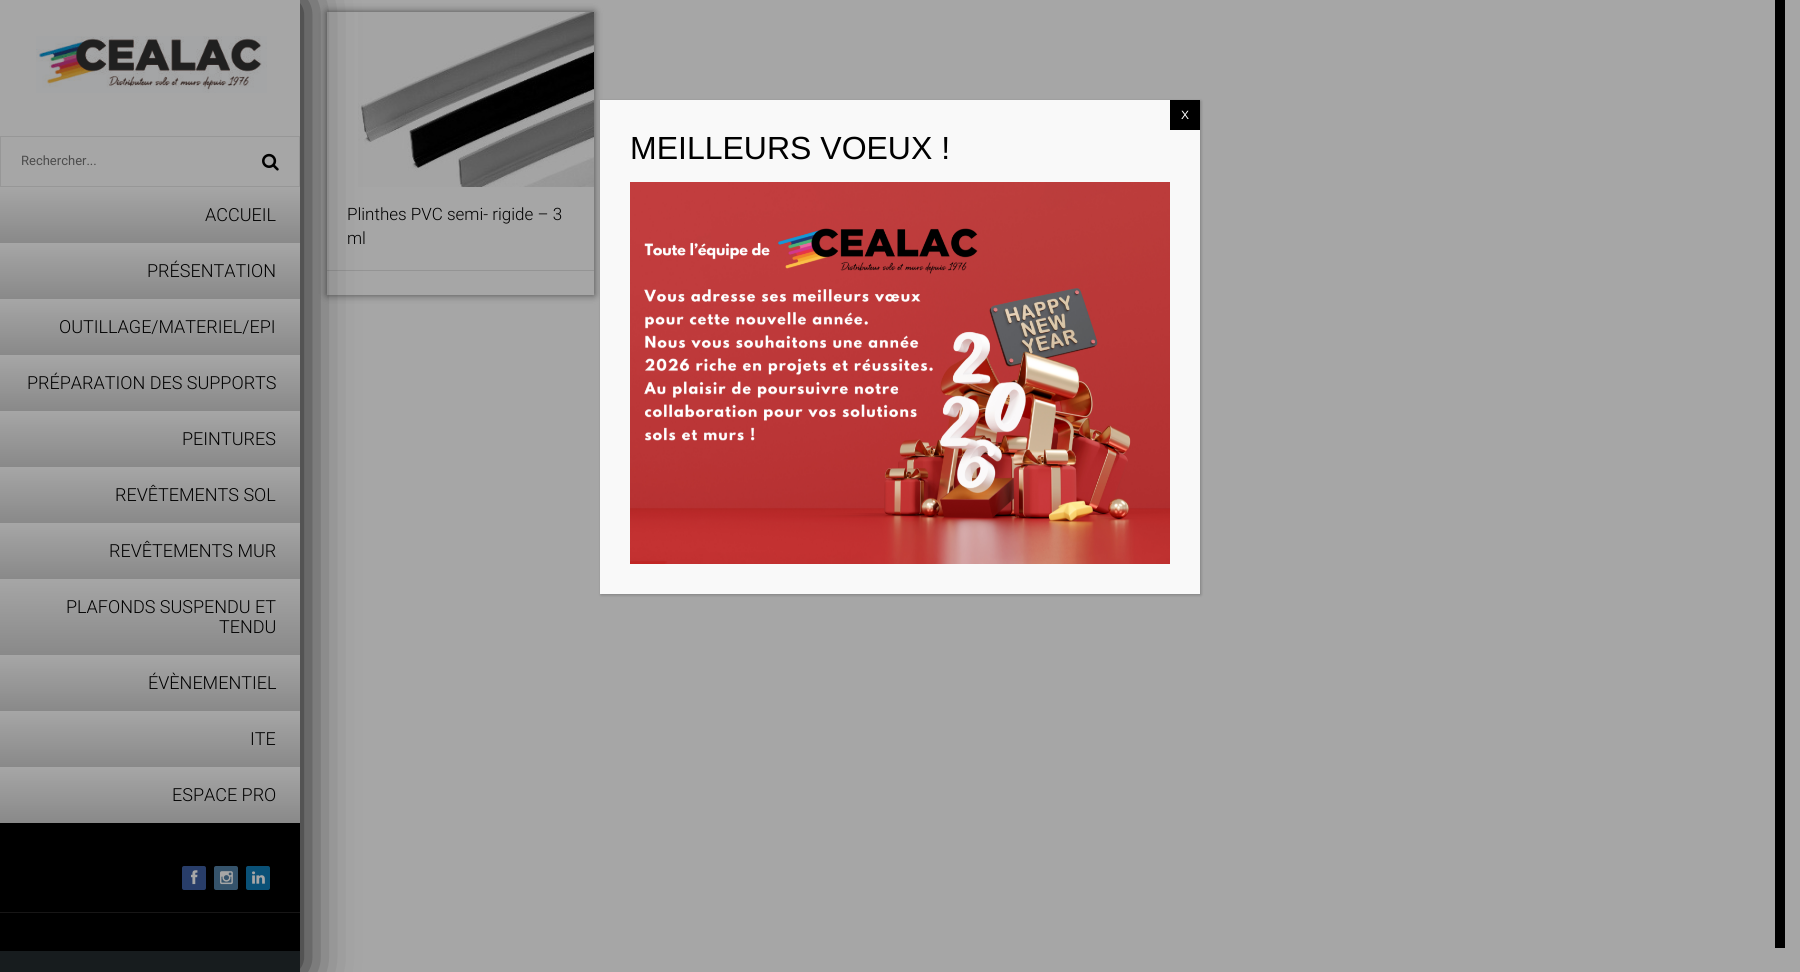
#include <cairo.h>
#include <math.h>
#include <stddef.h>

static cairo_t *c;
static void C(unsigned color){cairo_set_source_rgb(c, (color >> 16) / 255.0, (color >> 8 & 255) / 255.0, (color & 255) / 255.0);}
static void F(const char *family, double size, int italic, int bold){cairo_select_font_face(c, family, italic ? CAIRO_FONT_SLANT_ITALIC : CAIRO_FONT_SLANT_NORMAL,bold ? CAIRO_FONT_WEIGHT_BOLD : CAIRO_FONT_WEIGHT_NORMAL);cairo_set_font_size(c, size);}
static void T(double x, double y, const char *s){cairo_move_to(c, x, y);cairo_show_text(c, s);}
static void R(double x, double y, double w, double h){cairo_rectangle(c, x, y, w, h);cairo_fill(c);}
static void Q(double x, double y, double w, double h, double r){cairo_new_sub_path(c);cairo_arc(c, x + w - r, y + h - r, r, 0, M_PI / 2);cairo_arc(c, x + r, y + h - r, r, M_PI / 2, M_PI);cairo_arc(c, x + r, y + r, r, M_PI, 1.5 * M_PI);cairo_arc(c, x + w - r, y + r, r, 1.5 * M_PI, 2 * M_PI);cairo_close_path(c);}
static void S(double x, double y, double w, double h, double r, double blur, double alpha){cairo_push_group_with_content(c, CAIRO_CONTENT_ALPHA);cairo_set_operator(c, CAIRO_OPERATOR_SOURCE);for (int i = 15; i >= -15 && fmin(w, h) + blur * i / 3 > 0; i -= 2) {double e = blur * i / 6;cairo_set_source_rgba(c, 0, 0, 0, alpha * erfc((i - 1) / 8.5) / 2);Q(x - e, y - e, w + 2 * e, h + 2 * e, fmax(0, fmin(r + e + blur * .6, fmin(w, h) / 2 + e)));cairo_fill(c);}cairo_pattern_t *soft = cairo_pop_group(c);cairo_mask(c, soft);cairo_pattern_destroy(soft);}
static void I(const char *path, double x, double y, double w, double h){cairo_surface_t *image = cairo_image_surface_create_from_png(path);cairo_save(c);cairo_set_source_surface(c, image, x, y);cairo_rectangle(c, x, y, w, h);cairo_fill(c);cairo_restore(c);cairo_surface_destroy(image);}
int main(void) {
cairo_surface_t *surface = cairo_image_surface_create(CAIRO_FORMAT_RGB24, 1800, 972);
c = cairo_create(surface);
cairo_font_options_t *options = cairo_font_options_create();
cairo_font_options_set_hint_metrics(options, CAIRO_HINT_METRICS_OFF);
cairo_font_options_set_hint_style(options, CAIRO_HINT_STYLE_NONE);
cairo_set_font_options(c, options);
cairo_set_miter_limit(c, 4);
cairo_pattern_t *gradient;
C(0xa6a6a6);
cairo_paint(c);
C(0x020202);
S(601,101,600,494,0,1.5,.23);
cairo_save(c);
cairo_set_fill_rule(c,CAIRO_FILL_RULE_EVEN_ODD);
cairo_new_path(c);
cairo_move_to(c,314,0);
cairo_line_to(c,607,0);
cairo_line_to(c,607,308);
cairo_line_to(c,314,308);
cairo_close_path(c);
cairo_move_to(c,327,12);
cairo_line_to(c,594,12);
cairo_line_to(c,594,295);
cairo_line_to(c,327,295);
cairo_close_path(c);
cairo_clip(c);
C(0x4e4e4e);
S(327,12,267,283,0,4,1);
cairo_restore(c);
C(0xf9f9f9);
R(600,100,600,494);
C(0x000000);
R(1170,100,30,30);
F("Liberation Sans",12,0,0);
C(0xffffff);
T(1181,119,"X");
F("Liberation Sans",32,0,0);
C(0x000000);
T(630,159,"MEILLEURS VOEUX !");
I("1.png",630,182,540,382);
R(1775,0,10,948);
I("7.png",358,12,236,175);
C(0x949494);
R(327,270,267,1);
C(0x000000);
S(0,0,300,972,0,25,1);
C(0x171c1e);
R(0,951,300,21);
C(0xa6a6a6);
R(0,0,300,136);
I("2.png",36,36,231,57);
cairo_rectangle(c,.5,136.5,299,50);
cairo_fill_preserve(c);
C(0x979797);
cairo_set_line_width(c,1);
cairo_stroke(c);
F("Roboto",13,0,0);
C(0x4c4c4c);
T(21,165,"Rechercher...");
I("3.png",262,153,17,18);
gradient = cairo_pattern_create_linear(150,187,150,243);
cairo_pattern_add_color_stop_rgba(gradient,0,0.651,0.651,0.651,1);
cairo_pattern_add_color_stop_rgba(gradient,1,0.537,0.537,0.537,1);
cairo_set_source(c,gradient);
cairo_pattern_destroy(gradient);
R(0,187,300,56);
F("Roboto Light",18,0,0);
C(0x000000);
T(205,221,"ACCUEIL");
gradient = cairo_pattern_create_linear(150,243,150,299);
cairo_pattern_add_color_stop_rgba(gradient,0,0.651,0.651,0.651,1);
cairo_pattern_add_color_stop_rgba(gradient,1,0.537,0.537,0.537,1);
cairo_set_source(c,gradient);
cairo_pattern_destroy(gradient);
R(0,243,300,56);
C(0x000000);
T(147,277,"PRÉSENTATION");
gradient = cairo_pattern_create_linear(150,299,150,355);
cairo_pattern_add_color_stop_rgba(gradient,0,0.651,0.651,0.651,1);
cairo_pattern_add_color_stop_rgba(gradient,1,0.537,0.537,0.537,1);
cairo_set_source(c,gradient);
cairo_pattern_destroy(gradient);
R(0,299,300,56);
C(0x000000);
T(59,333,"OUTILLAGE/MATERIEL/EPI");
gradient = cairo_pattern_create_linear(150,355,150,411);
cairo_pattern_add_color_stop_rgba(gradient,0,0.651,0.651,0.651,1);
cairo_pattern_add_color_stop_rgba(gradient,1,0.537,0.537,0.537,1);
cairo_set_source(c,gradient);
cairo_pattern_destroy(gradient);
R(0,355,300,56);
C(0x000000);
T(27,389,"PRÉPARATION DES SUPPORTS");
gradient = cairo_pattern_create_linear(150,411,150,467);
cairo_pattern_add_color_stop_rgba(gradient,0,0.651,0.651,0.651,1);
cairo_pattern_add_color_stop_rgba(gradient,1,0.537,0.537,0.537,1);
cairo_set_source(c,gradient);
cairo_pattern_destroy(gradient);
R(0,411,300,56);
C(0x000000);
T(182,445,"PEINTURES");
gradient = cairo_pattern_create_linear(150,467,150,523);
cairo_pattern_add_color_stop_rgba(gradient,0,0.651,0.651,0.651,1);
cairo_pattern_add_color_stop_rgba(gradient,1,0.537,0.537,0.537,1);
cairo_set_source(c,gradient);
cairo_pattern_destroy(gradient);
R(0,467,300,56);
C(0x000000);
T(115,501,"REVÊTEMENTS SOL");
gradient = cairo_pattern_create_linear(150,523,150,579);
cairo_pattern_add_color_stop_rgba(gradient,0,0.651,0.651,0.651,1);
cairo_pattern_add_color_stop_rgba(gradient,1,0.537,0.537,0.537,1);
cairo_set_source(c,gradient);
cairo_pattern_destroy(gradient);
R(0,523,300,56);
C(0x000000);
T(109,557,"REVÊTEMENTS MUR");
gradient = cairo_pattern_create_linear(150,579,150,655);
cairo_pattern_add_color_stop_rgba(gradient,0,0.651,0.651,0.651,1);
cairo_pattern_add_color_stop_rgba(gradient,1,0.537,0.537,0.537,1);
cairo_set_source(c,gradient);
cairo_pattern_destroy(gradient);
R(0,579,300,76);
C(0x000000);
T(66,613,"PLAFONDS SUSPENDU ET");
T(219,633,"TENDU");
gradient = cairo_pattern_create_linear(150,655,150,711);
cairo_pattern_add_color_stop_rgba(gradient,0,0.651,0.651,0.651,1);
cairo_pattern_add_color_stop_rgba(gradient,1,0.537,0.537,0.537,1);
cairo_set_source(c,gradient);
cairo_pattern_destroy(gradient);
R(0,655,300,56);
C(0x000000);
T(148,689,"ÉVÈNEMENTIEL");
gradient = cairo_pattern_create_linear(150,711,150,767);
cairo_pattern_add_color_stop_rgba(gradient,0,0.651,0.651,0.651,1);
cairo_pattern_add_color_stop_rgba(gradient,1,0.537,0.537,0.537,1);
cairo_set_source(c,gradient);
cairo_pattern_destroy(gradient);
R(0,711,300,56);
C(0x000000);
T(250,745,"ITE");
gradient = cairo_pattern_create_linear(150,767,150,823);
cairo_pattern_add_color_stop_rgba(gradient,0,0.651,0.651,0.651,1);
cairo_pattern_add_color_stop_rgba(gradient,1,0.537,0.537,0.537,1);
cairo_set_source(c,gradient);
cairo_pattern_destroy(gradient);
R(0,767,300,56);
C(0x000000);
T(172,801,"ESPACE PRO");
R(0,823,300,128);
C(0x171616);
R(0,912,300,1);
C(0x283d69);
Q(182,866,24,24,2);
cairo_fill(c);
I("4.png",191,870,7,15);
C(0x35536b);
Q(214,866,24,24,2);
cairo_fill(c);
I("5.png",220,871,13,14);
C(0x0a5177);
Q(246,866,24,24,2);
cairo_fill(c);
I("6.png",252,871,13,13);
F("Roboto Light",17,0,0);
C(0x000000);
T(347,220,"Plinthes PVC semi- rigide – 3");
T(347,244,"ml");
cairo_surface_write_to_png(surface, "o.png");
cairo_font_options_destroy(options);
cairo_destroy(c);
cairo_surface_destroy(surface);
return 0;
}
